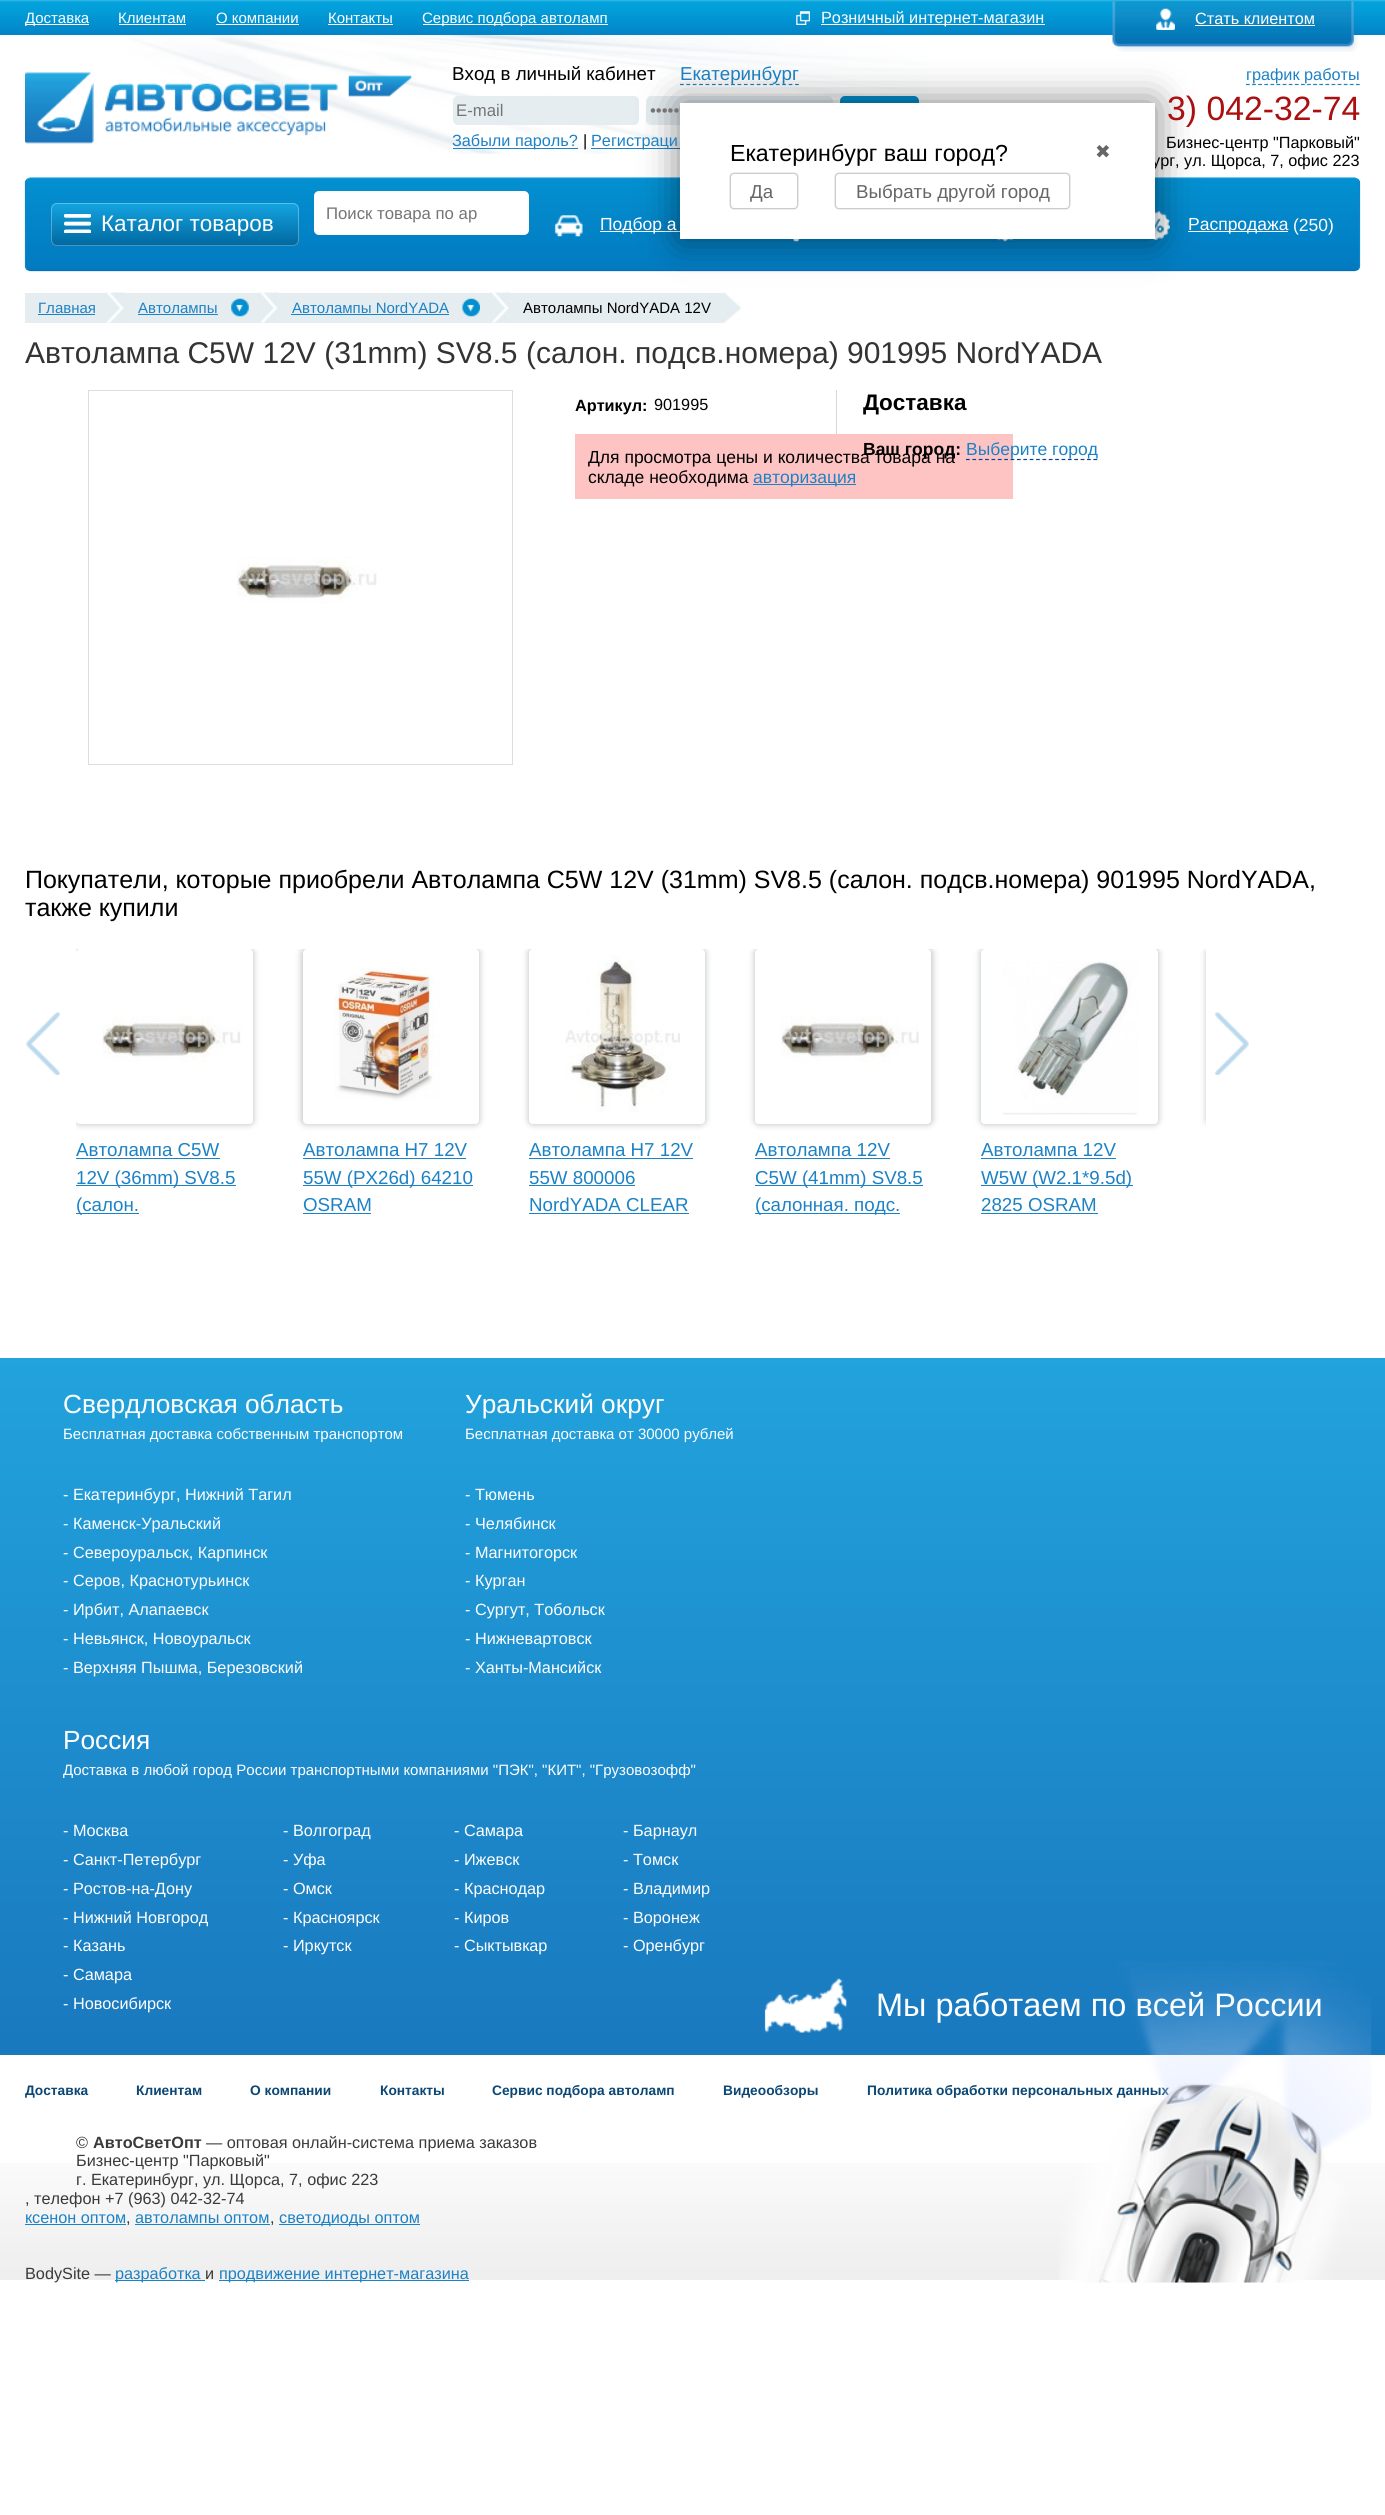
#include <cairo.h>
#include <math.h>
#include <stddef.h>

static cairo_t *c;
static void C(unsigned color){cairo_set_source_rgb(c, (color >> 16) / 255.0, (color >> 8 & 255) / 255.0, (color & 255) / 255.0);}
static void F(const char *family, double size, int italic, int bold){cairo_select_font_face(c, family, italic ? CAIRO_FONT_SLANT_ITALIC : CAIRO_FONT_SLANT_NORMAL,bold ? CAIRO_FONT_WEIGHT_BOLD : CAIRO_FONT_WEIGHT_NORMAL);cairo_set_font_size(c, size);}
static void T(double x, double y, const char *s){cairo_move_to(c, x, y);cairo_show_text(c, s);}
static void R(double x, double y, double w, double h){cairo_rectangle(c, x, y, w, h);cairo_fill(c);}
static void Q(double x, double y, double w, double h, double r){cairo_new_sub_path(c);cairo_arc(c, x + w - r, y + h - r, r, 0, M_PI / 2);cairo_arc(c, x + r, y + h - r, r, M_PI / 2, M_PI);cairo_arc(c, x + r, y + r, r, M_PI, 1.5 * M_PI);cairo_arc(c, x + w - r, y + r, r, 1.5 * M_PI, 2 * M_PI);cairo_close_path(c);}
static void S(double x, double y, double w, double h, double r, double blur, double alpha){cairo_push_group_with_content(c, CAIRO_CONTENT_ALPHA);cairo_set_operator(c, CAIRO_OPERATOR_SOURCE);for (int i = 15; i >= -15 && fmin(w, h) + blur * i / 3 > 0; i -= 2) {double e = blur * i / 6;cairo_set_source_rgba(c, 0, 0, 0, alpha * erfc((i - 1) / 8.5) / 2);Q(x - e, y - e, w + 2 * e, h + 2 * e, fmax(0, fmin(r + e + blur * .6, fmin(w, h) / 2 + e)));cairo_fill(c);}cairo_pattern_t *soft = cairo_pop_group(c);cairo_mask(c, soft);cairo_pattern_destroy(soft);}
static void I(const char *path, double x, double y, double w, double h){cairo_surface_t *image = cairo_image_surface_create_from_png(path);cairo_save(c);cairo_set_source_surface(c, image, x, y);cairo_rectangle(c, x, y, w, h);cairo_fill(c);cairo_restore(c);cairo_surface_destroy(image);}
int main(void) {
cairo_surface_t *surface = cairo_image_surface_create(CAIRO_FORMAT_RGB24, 1385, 2515);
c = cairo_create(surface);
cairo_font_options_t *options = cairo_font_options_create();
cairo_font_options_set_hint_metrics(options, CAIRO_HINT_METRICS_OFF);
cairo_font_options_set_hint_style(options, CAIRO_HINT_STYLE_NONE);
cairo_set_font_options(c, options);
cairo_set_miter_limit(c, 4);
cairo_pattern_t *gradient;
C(0xffffff);
cairo_paint(c);
I("1.png",0,0,1385,35);
C(0xffffff);
R(25,24,64,1);
F("Liberation Sans",15,0,0);
T(25,23,"Доставка");
T(118,23,"Клиентам");
R(119,24,67,1);
T(216,23,"О компании");
R(216,24,83,1);
T(328,23,"Контакты");
R(328,24,65,1);
R(423,24,185,1);
T(422,23,"Сервис подбора автоламп");
I("2.png",796,11,14,14);
R(821,24,224,1);
F("Liberation Sans",16.25,0,0);
T(821,23,"Розничный интернет-магазин");
I("3.png",1112,1,246,51);
I("4.png",1156,8,19,22);
T(1195,24,"Стать клиентом");
R(1195,25,120,1);
I("5.png",128,35,800,119);
I("6.png",25,72,387,72);
F("Liberation Sans",18.75,0,0);
C(0x000000);
T(452,80,"Вход в личный кабинет");
cairo_new_path(c);
cairo_move_to(c,680,84.5);
cairo_line_to(c,799,84.5);
C(0x1d82c5);
cairo_set_line_width(c,1.2);
cairo_set_dash(c,(double[]){3.75,2.64},2,0);
cairo_stroke(c);
T(680,80,"Екатеринбург");
C(0xe5edf1);
Q(453,96,186,29,5);
cairo_fill(c);
Q(646,96,187,29,5);
cairo_fill(c);
C(0x028fce);
Q(840,96,79,29,5);
cairo_fill(c);
C(0x1d82c5);
R(591,148,97,1);
cairo_save(c);
Q(25,178,1335,93,5);
cairo_clip(c);
gradient = cairo_pattern_create_linear(693,87,693,179);
cairo_pattern_add_color_stop_rgba(gradient,0,0.012,0.565,0.816,1);
cairo_pattern_add_color_stop_rgba(gradient,1,0.008,0.478,0.753,1);
cairo_set_source(c,gradient);
cairo_pattern_destroy(gradient);
R(25,178,1335,1);
gradient = cairo_pattern_create_linear(693,179,693,270);
cairo_pattern_add_color_stop_rgba(gradient,0,0.012,0.565,0.816,1);
cairo_pattern_add_color_stop_rgba(gradient,1,0.008,0.478,0.753,1);
cairo_set_source(c,gradient);
cairo_pattern_destroy(gradient);
R(25,179,1335,91);
cairo_restore(c);
cairo_new_path(c);
cairo_move_to(c,27,179.5);
cairo_line_to(c,30,178);
cairo_line_to(c,1355,178);
cairo_line_to(c,1358,179.5);
C(0x1aa3e5);
cairo_set_dash(c,NULL,0,0);
cairo_stroke(c);
cairo_new_path(c);
cairo_move_to(c,1358,179.5);
cairo_line_to(c,1359.5,182);
cairo_line_to(c,1359.5,266.5);
cairo_line_to(c,1358,269.5);
C(0x0e85ce);
cairo_stroke(c);
cairo_new_path(c);
cairo_move_to(c,1358,269.5);
cairo_line_to(c,1355,270.5);
cairo_line_to(c,30,270.5);
cairo_line_to(c,27,269.5);
C(0x066dbd);
cairo_stroke(c);
C(0xffffff);
R(600,231,80,1);
I("9.png",1153,211,17,29);
R(1188,231,100,1);
I("10.png",792,239,8,3);
I("11.png",997,239,16,3);
C(0xe5edf1);
R(25,293,699,30);
I("17.png",724,292,17,31);
C(0x000000);
S(680,103,475,136,0,19,.5);
F("Liberation Sans",16.25,0,0);
C(0x000000);
T(1152,166,"ург, ул. Щорса, 7, офис 223");
C(0xffffff);
R(680,103,475,136);
F("Liberation Sans",23.25,0,0);
C(0x000000);
T(730,161,"Екатеринбург ваш город?");
F("DejaVu Sans",18.75,0,0);
C(0x666666);
T(1095,158,"✖");
C(0x000000);
S(730,173,68,36,4,.5,.3);
C(0xffffff);
Q(730.5,173.5,67,35,3.5);
cairo_fill_preserve(c);
C(0xcccccc);
cairo_set_line_width(c,1);
cairo_stroke(c);
F("Liberation Sans",18.75,0,0);
C(0x666666);
T(750,198,"Да");
C(0x000000);
S(835,173,235,36,4,.5,.3);
C(0xffffff);
Q(835.5,173.5,234,35,3.5);
cairo_fill_preserve(c);
C(0xcccccc);
cairo_stroke(c);
C(0x666666);
T(856,198,"Выбрать другой город");
F("Liberation Sans",16.75,0,0);
C(0x757575);
T(456,116,"E-mail");
T(650,116,"•••••");
C(0x1d82c5);
R(453,148,125,1);
F("Liberation Sans",16.25,0,0);
T(452,146,"Забыли пароль?");
C(0x000000);
T(583,146,"|");
C(0x1d82c5);
T(591,146,"Регистраци");
cairo_new_path(c);
cairo_move_to(c,1246,84.5);
cairo_line_to(c,1360,84.5);
cairo_set_line_width(c,1.2);
cairo_set_dash(c,(double[]){3.75,2.36},2,0);
cairo_stroke(c);
T(1246,80,"график работы");
F("Liberation Sans",33.75,0,0);
C(0xaa1010);
T(1167,120,"3) 042-32-74");
F("Liberation Sans",16.25,0,0);
C(0x000000);
T(1166,148,"Бизнес-центр \"Парковый\"");
cairo_new_path(c);
cairo_move_to(c,27,269.5);
cairo_line_to(c,25.5,266.5);
cairo_line_to(c,25.5,182);
cairo_line_to(c,27,179.5);
C(0x0e85ce);
cairo_set_dash(c,NULL,0,0);
cairo_stroke(c);
gradient = cairo_pattern_create_linear(175,203,175,246);
cairo_pattern_add_color_stop_rgba(gradient,0,0.078,0.647,0.886,1);
cairo_pattern_add_color_stop_rgba(gradient,1,0.004,0.404,0.624,1);
cairo_set_source(c,gradient);
cairo_pattern_destroy(gradient);
Q(51,203,248,43,6);
cairo_fill(c);
Q(51.5,203.5,247,42,5.5);
cairo_set_source_rgba(c,1,1,1,0.3);
cairo_set_line_width(c,1);
cairo_stroke(c);
I("7.png",64,214,27,19);
F("Liberation Sans",22.5,0,0);
C(0xffffff);
T(101,231,"Каталог товаров");
Q(314,191,215,44,5);
cairo_fill(c);
F("Liberation Sans",16.75,0,0);
C(0x757575);
T(326,219,"Поиск товара по ар");
I("8.png",554,215,29,22);
F("Liberation Sans",17.5,0,0);
C(0xffffff);
T(600,230,"Подбор а");
T(1188,230,"Распродажа");
T(1293,231,"(250)");
I("12.png",105,292,20,31);
F("Liberation Sans",15,0,0);
C(0x1d82c5);
T(38,313,"Главная");
R(38,314,57,1);
I("13.png",259,292,20,31);
T(138,313,"Автолампы");
R(138,314,80,1);
I("14.png",231,298,18,19);
I("15.png",490,292,20,31);
T(292,313,"Автолампы NordYADA");
R(291,314,158,1);
I("16.png",462,298,18,19);
C(0x000000);
T(523,313,"Автолампы NordYADA 12V");
F("Liberation Sans",30,0,0);
C(0x333333);
T(25,363,"Автолампа C5W 12V (31mm) SV8.5 (салон. подсв.номера) 901995 NordYADA");
cairo_rectangle(c,88.5,390.5,424,374);
C(0xdddddd);
cairo_stroke(c);
I("18.png",237,556,140,48);
F("Liberation Sans",16.25,0,1);
C(0x000000);
T(575,411,"Артикул:");
F("Liberation Sans",16.25,0,0);
T(654,410,"901995");
C(0xfec4c4);
R(575,434,438,65);
F("Liberation Sans",17.5,0,0);
C(0x000000);
T(588,463,"Для просмотра цены и количества товара на");
T(588,483,"складе необходима");
C(0x1d82c5);
R(753,484,103,1);
T(753,483,"авторизация");
C(0xd6d6d6);
R(836,390,1,44);
F("Liberation Sans",22.5,0,1);
C(0x000000);
T(863,410,"Доставка");
F("Liberation Sans",17.5,0,1);
T(863,455,"Ваш город:");
cairo_new_path(c);
cairo_move_to(c,966,459.5);
cairo_line_to(c,1097.5,459.5);
C(0x0a4194);
cairo_set_line_width(c,1.2);
cairo_set_dash(c,(double[]){3.75,2.62},2,0);
cairo_stroke(c);
F("Liberation Sans",17.5,0,0);
C(0x1d82c5);
T(966,455,"Выберите город");
F("Liberation Sans",25,0,0);
C(0x000000);
T(25,888,"Покупатели, которые приобрели Автолампа C5W 12V (31mm) SV8.5 (салон. подсв.номера) 901995 NordYADA,");
T(25,916,"также купили");
I("19.png",26,1012,34,63);
cairo_save(c);
cairo_rectangle(c,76,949,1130,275);
cairo_clip(c);
C(0xc7cacc);
S(1206,948,179,177,5,3,1);
cairo_restore(c);
I("20.png",1215,1012,34,63);
cairo_save(c);
cairo_rectangle(c,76,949,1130,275);
cairo_clip(c);
C(0xc7cacc);
S(75,948,179,177,5,3,1);
cairo_restore(c);
C(0xffffff);
Q(76,949,177,175,4);
cairo_fill(c);
I("21.png",102,1015,139,47);
F("Liberation Sans",18.75,0,0);
C(0x1d82c5);
T(76,1156,"Автолампа C5W");
R(76,1158,144,1);
R(76,1185,160,1);
T(76,1184,"12V (36mm) SV8.5");
R(76,1213,63,1);
T(76,1211,"(салон.");
cairo_save(c);
cairo_rectangle(c,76,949,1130,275);
cairo_clip(c);
C(0xc7cacc);
S(301,948,179,177,5,3,1);
cairo_restore(c);
C(0xffffff);
Q(303,949,176,175,4);
cairo_fill(c);
I("22.png",334,968,106,133);
C(0x1d82c5);
T(303,1156,"Автолампа H7 12V");
R(303,1158,163,1);
R(303,1185,170,1);
T(303,1184,"55W (PX26d) 64210");
T(303,1211,"OSRAM");
R(303,1213,68,1);
cairo_save(c);
cairo_rectangle(c,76,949,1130,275);
cairo_clip(c);
C(0xc7cacc);
S(528,948,178,177,5,3,1);
cairo_restore(c);
C(0xffffff);
Q(529,949,176,175,4);
cairo_fill(c);
I("23.png",565,955,115,157);
C(0x1d82c5);
T(529,1156,"Автолампа H7 12V");
R(529,1158,164,1);
T(529,1184,"55W 800006");
R(529,1185,106,1);
T(529,1211,"NordYADA CLEAR");
R(529,1213,160,1);
cairo_save(c);
cairo_rectangle(c,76,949,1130,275);
cairo_clip(c);
C(0xc7cacc);
S(754,948,179,177,5,3,1);
cairo_restore(c);
C(0xffffff);
Q(755,949,176,175,4);
cairo_fill(c);
I("24.png",781,1015,138,47);
C(0x1d82c5);
T(755,1156,"Автолампа 12V");
R(755,1158,135,1);
R(755,1185,168,1);
T(755,1184,"C5W (41mm) SV8.5");
R(755,1213,145,1);
T(755,1211,"(салонная. подс.");
cairo_save(c);
cairo_rectangle(c,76,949,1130,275);
cairo_clip(c);
C(0xc7cacc);
S(980,948,179,177,5,3,1);
cairo_restore(c);
C(0xffffff);
Q(981,949,177,175,4);
cairo_fill(c);
I("25.png",1002,961,136,154);
C(0x1d82c5);
T(981,1156,"Автолампа 12V");
R(981,1158,135,1);
R(981,1185,152,1);
T(981,1184,"W5W (W2.1*9.5d)");
T(981,1211,"2825 OSRAM");
R(981,1213,117,1);
gradient = cairo_pattern_create_linear(693,1358,693,2055);
cairo_pattern_add_color_stop_rgba(gradient,0,0.133,0.639,0.867,1);
cairo_pattern_add_color_stop_rgba(gradient,1,0.098,0.471,0.745,1);
cairo_set_source(c,gradient);
cairo_pattern_destroy(gradient);
R(0,1358,1385,697);
F("Liberation Sans",26.25,0,0);
C(0xffffff);
T(63,1413,"Свердловская область");
F("Liberation Sans",15,0,0);
T(63,1439,"Бесплатная доставка собственным транспортом");
F("Liberation Sans",16.25,0,0);
T(63,1500,"- Екатеринбург, Нижний Тагил");
T(63,1529,"- Каменск-Уральский");
T(63,1558,"- Североуральск, Карпинск");
T(63,1586,"- Серов, Краснотурьинск");
T(63,1615,"- Ирбит, Алапаевск");
T(63,1644,"- Невьянск, Новоуральск");
T(63,1673,"- Верхняя Пышма, Березовский");
F("Liberation Sans",26.25,0,0);
T(465,1413,"Уральский округ");
F("Liberation Sans",15,0,0);
T(465,1439,"Бесплатная доставка от 30000 рублей");
F("Liberation Sans",16.25,0,0);
T(465,1500,"- Тюмень");
T(465,1529,"- Челябинск");
T(465,1558,"- Магнитогорск");
T(465,1586,"- Курган");
T(465,1615,"- Сургут, Тобольск");
T(465,1644,"- Нижневартовск");
T(465,1673,"- Ханты-Мансийск");
F("Liberation Sans",26.25,0,0);
T(63,1749,"Россия");
F("Liberation Sans",15,0,0);
T(63,1775,"Доставка в любой город России транспортными компаниями \"ПЭК\", \"КИТ\", \"Грузовозофф\"");
F("Liberation Sans",16.25,0,0);
T(63,1836,"- Москва");
T(63,1865,"- Санкт-Петербург");
T(63,1894,"- Ростов-на-Дону");
T(63,1923,"- Нижний Новгород");
T(63,1951,"- Казань");
T(63,1980,"- Самара");
T(63,2009,"- Новосибирск");
T(283,1836,"- Волгоград");
T(283,1865,"- Уфа");
T(283,1894,"- Омск");
T(283,1923,"- Красноярск");
T(283,1951,"- Иркутск");
T(454,1836,"- Самара");
T(454,1865,"- Ижевск");
T(454,1894,"- Краснодар");
T(454,1923,"- Киров");
T(454,1951,"- Сыктывкар");
T(623,1836,"- Барнаул");
T(623,1865,"- Томск");
T(623,1894,"- Владимир");
T(623,1923,"- Воронеж");
T(623,1951,"- Оренбург");
I("26.png",764,1978,83,55);
F("Liberation Sans",32.5,0,0);
T(876,2016,"Мы работаем по всей России");
I("27.png",0,2163,1385,117);
F("Liberation Sans",13.75,0,1);
C(0x0b4775);
T(25,2095,"Доставка");
T(136,2095,"Клиентам");
T(250,2095,"О компании");
T(380,2095,"Контакты");
T(492,2095,"Сервис подбора автоламп");
T(723,2095,"Видеообзоры");
T(867,2095,"Политика обработки персональных данных");
I("28.png",1059,1961,313,322);
F("Liberation Sans",16.25,0,0);
C(0x3a3a3a);
T(76,2148,"©");
F("Liberation Sans",16.25,0,1);
T(93,2148,"АвтоСветОпт");
F("Liberation Sans",16.25,0,0);
T(206,2148,"— оптовая онлайн-система приема заказов");
T(76,2166,"Бизнес-центр \"Парковый\"");
T(76,2185,"г. Екатеринбург, ул. Щорса, 7, офис 223");
T(25,2204,", телефон +7 (963) 042-32-74");
C(0x1d82c5);
T(25,2223,"ксенон оптом");
R(25,2224,101,1);
C(0x3a3a3a);
T(126,2223,",");
C(0x1d82c5);
T(135,2223,"автолампы оптом");
R(135,2224,135,1);
C(0x3a3a3a);
T(270,2223,",");
C(0x1d82c5);
R(279,2224,141,1);
T(279,2223,"светодиоды оптом");
C(0x3a3a3a);
T(25,2279,"BodySite —");
C(0x1d82c5);
R(115,2280,90,1);
T(115,2279,"разработка");
C(0x3a3a3a);
T(205,2279,"и");
C(0x1d82c5);
R(219,2280,250,1);
T(219,2279,"продвижение интернет-магазина");
cairo_surface_write_to_png(surface, "o.png");
cairo_font_options_destroy(options);
cairo_destroy(c);
cairo_surface_destroy(surface);
return 0;
}
